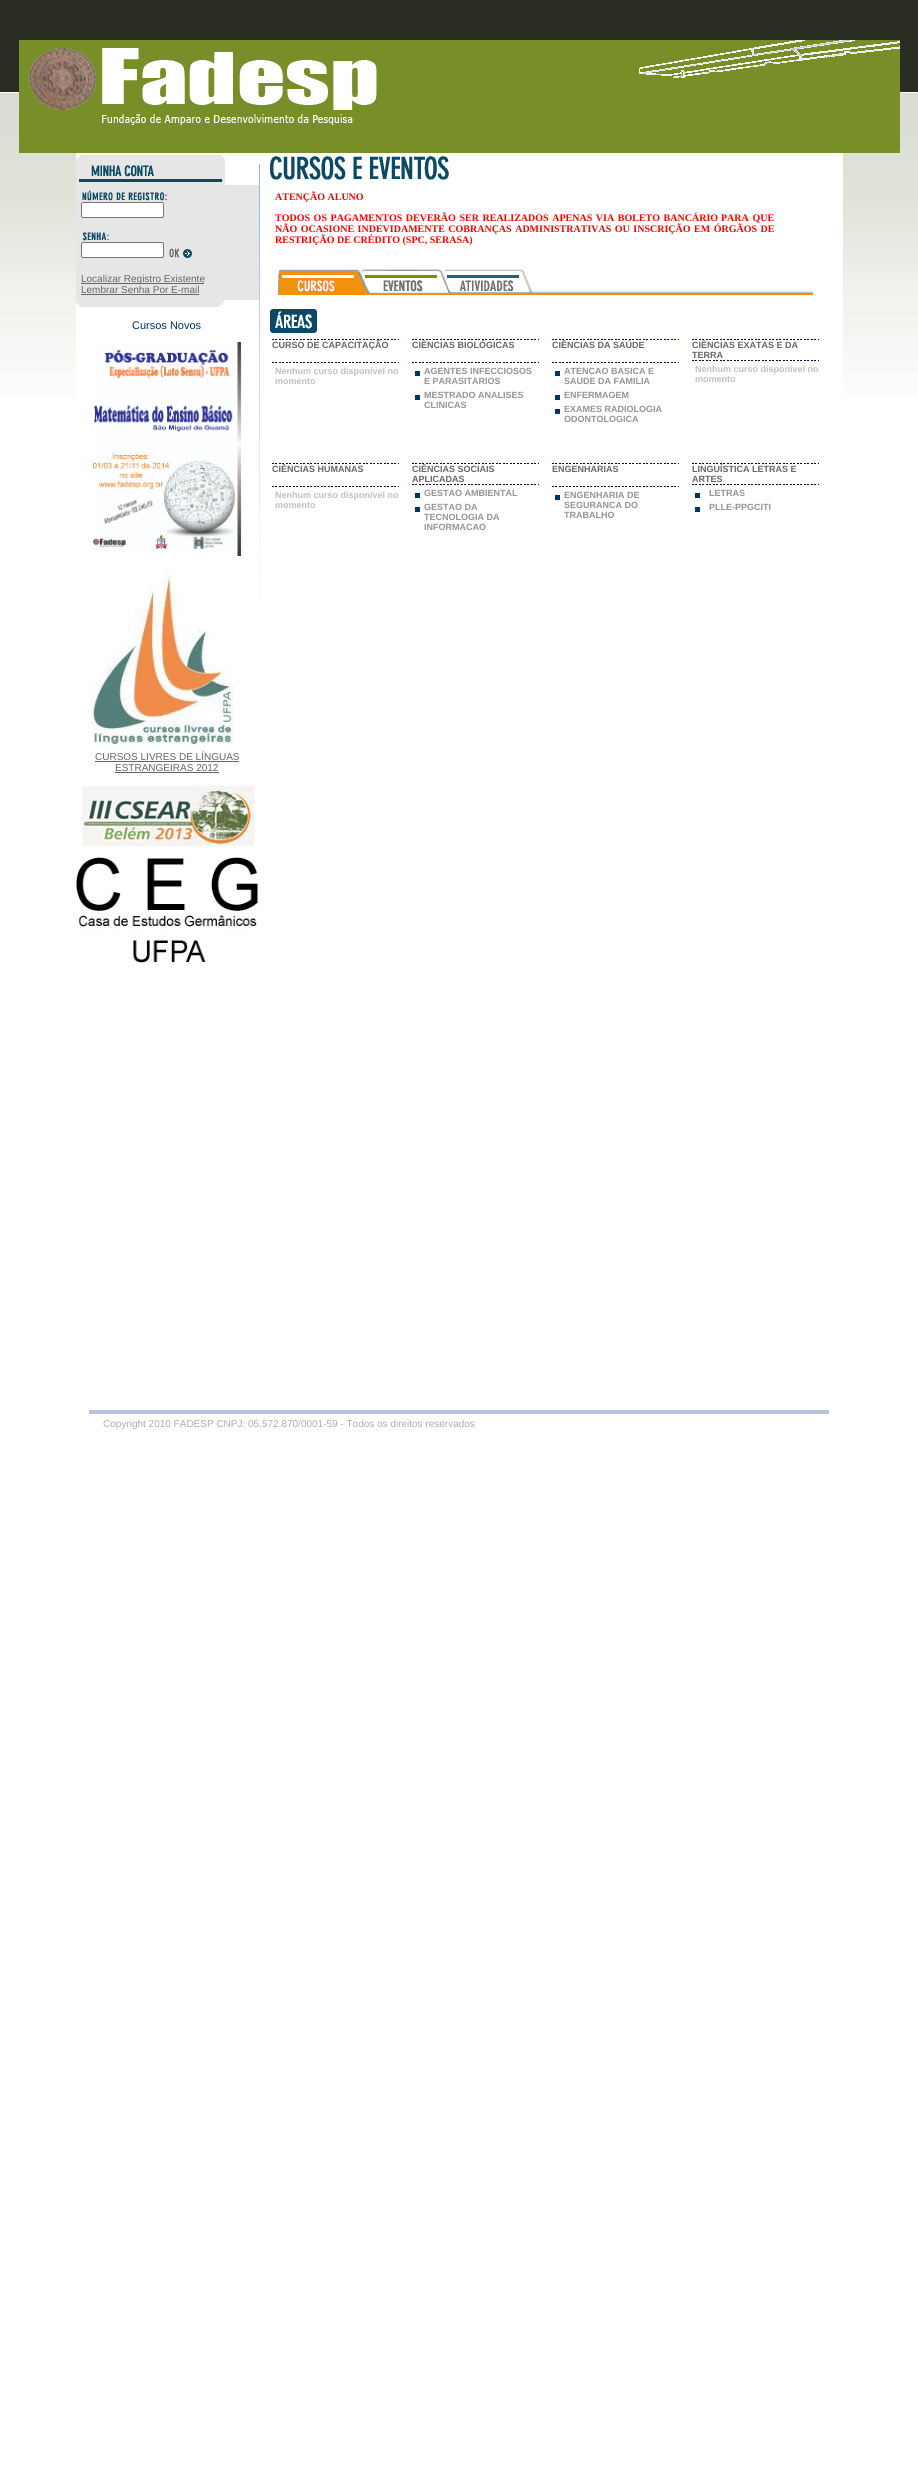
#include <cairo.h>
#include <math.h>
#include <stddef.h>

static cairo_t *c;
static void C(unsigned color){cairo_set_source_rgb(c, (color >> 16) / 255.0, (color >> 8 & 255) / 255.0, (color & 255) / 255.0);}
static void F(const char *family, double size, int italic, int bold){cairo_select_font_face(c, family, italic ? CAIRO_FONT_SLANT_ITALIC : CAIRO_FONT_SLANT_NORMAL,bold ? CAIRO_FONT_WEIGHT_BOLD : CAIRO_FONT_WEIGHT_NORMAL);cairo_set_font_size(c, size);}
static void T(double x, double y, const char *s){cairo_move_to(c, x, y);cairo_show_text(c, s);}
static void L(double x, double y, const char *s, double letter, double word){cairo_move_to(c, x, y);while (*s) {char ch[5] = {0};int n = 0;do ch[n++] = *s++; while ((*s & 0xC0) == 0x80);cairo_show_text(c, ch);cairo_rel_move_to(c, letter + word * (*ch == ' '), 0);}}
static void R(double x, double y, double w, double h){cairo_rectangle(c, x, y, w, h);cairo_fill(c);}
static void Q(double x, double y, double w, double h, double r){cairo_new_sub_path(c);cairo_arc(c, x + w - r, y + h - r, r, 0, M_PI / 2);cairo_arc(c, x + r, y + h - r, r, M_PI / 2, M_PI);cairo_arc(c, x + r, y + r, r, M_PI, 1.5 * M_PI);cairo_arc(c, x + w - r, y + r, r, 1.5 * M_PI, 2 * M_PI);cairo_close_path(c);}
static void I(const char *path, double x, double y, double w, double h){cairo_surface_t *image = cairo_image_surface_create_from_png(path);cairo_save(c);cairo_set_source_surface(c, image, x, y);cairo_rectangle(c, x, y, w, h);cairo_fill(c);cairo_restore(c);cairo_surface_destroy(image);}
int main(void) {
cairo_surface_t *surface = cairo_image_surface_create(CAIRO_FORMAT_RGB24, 918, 2482);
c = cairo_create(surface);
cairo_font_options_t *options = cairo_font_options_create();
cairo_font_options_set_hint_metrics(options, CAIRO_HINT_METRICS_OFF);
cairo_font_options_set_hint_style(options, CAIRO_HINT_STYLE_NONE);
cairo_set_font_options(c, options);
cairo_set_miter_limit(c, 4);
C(0xffffff);
cairo_paint(c);
I("1.png",0,0,918,395);
C(0x788e29);
R(19,40,881,113);
I("2.png",28,48,349,77);
I("3.png",639,40,261,38);
C(0xffffff);
R(76,153,767,242);
I("4.png",76,155,149,30);
C(0xe6e6e6);
R(76,185,183,115);
I("5.png",82,190,85,11);
C(0xffffff);
Q(81.5,202.5,82,15,1.5);
cairo_fill_preserve(c);
C(0x767676);
cairo_set_line_width(c,1);
cairo_stroke(c);
I("6.png",82,232,27,9);
C(0xffffff);
Q(81.5,242.5,82,15,1.5);
cairo_fill_preserve(c);
C(0x767676);
cairo_stroke(c);
I("7.png",169,248,23,10);
C(0x666666);
R(81,283,123,1);
F("Liberation Sans",10,0,0);
T(81,282,"Localizar Registro Existente");
T(81,293,"Lembrar Senha Por E-mail");
R(81,294,118,1);
I("8.png",76,300,148,7);
F("Liberation Sans",11,0,0);
C(0x003366);
T(132,329,"Cursos Novos");
I("9.png",92,342,150,214);
I("10.png",92,567,142,183);
F("Liberation Sans",10,0,0);
C(0x666666);
T(95,760,"CURSOS LIVRES DE LÍNGUAS");
R(95,761,144,1);
T(115,771,"ESTRANGEIRAS 2012");
R(115,772,104,1);
I("11.png",80,784,174,62);
I("12.png",76,857,182,106);
I("13.png",259,164,1,440);
I("14.png",270,156,179,24);
F("Liberation Serif",10,0,1);
C(0xff0000);
T(275,200,"ATENÇÃO ALUNO");
L(275,221,"TODOS OS PAGAMENTOS DEVERÃO SER REALIZADOS APENAS VIA BOLETO BANCÁRIO",0,1.1);
L(721,221,"PARA QUE",0,1.1);
L(275,232,"NÃO OCASIONE INDEVIDAMENTE COBRANÇAS ADMINISTRATIVAS OU INSCRIÇÃO EM ÓRGÃOS DE",0,1);
T(275,243,"RESTRIÇÃO DE CRÉDITO (SPC, SERASA)");
I("15.png",278,269,535,26);
I("16.png",270,309,47,24);
I("17.png",272,339,127,1);
F("Liberation Sans",9,0,1);
C(0x666666);
T(272,348,"CURSO DE CAPACITAÇÃO");
I("17.png",272,362,127,1);
C(0xc0c0c0);
T(275,374,"Nenhum curso disponível no");
T(275,384,"momento");
I("17.png",412,339,127,1);
C(0x666666);
T(412,348,"CIÊNCIAS BIOLÓGICAS");
I("17.png",412,362,127,1);
C(0x003366);
R(415,371,5,5);
C(0x949494);
T(424,374,"AGENTES INFECCIOSOS");
T(424,384,"E PARASITARIOS");
C(0x003366);
R(415,395,5,5);
C(0x949494);
T(424,398,"MESTRADO ANALISES");
T(424,408,"CLINICAS");
I("17.png",552,339,127,1);
C(0x666666);
T(552,348,"CIÊNCIAS DA SAÚDE");
I("17.png",552,362,127,1);
C(0x003366);
R(555,371,5,5);
C(0x949494);
T(564,374,"ATENCAO BASICA E");
T(564,384,"SAUDE DA FAMILIA");
C(0x003366);
R(555,395,5,5);
C(0x949494);
T(564,398,"ENFERMAGEM");
C(0x003366);
R(555,409,5,5);
C(0x949494);
T(564,412,"EXAMES RADIOLOGIA");
T(564,422,"ODONTOLOGICA");
I("17.png",692,339,127,1);
C(0x666666);
T(692,348,"CIÊNCIAS EXATAS E DA");
T(692,358,"TERRA");
I("17.png",692,360,127,1);
C(0xc0c0c0);
T(695,372,"Nenhum curso disponível no");
T(695,382,"momento");
I("17.png",272,463,127,1);
C(0x666666);
T(272,472,"CIÊNCIAS HUMANAS");
I("17.png",272,486,127,1);
C(0xc0c0c0);
T(275,498,"Nenhum curso disponível no");
T(275,508,"momento");
I("17.png",412,463,127,1);
C(0x666666);
T(412,472,"CIÊNCIAS SOCIAIS");
T(412,482,"APLICADAS");
I("17.png",412,484,127,1);
C(0x003366);
R(415,493,5,5);
C(0x949494);
T(424,496,"GESTAO AMBIENTAL");
C(0x003366);
R(415,507,5,5);
C(0x949494);
T(424,510,"GESTAO DA");
T(424,520,"TECNOLOGIA DA");
T(424,530,"INFORMACAO");
I("17.png",552,463,127,1);
C(0x666666);
T(552,472,"ENGENHARIAS");
I("17.png",552,486,127,1);
C(0x003366);
R(555,495,5,5);
C(0x949494);
T(564,498,"ENGENHARIA DE");
T(564,508,"SEGURANCA DO");
T(564,518,"TRABALHO");
I("17.png",692,463,127,1);
C(0x666666);
T(692,472,"LINGUÍSTICA LETRAS E");
T(692,482,"ARTES");
I("17.png",692,484,127,1);
C(0x003366);
R(695,493,5,5);
C(0x949494);
T(709,496,"LETRAS");
C(0x003366);
R(695,507,5,5);
C(0x949494);
T(709,510,"PLLE-PPGCITI");
C(0xb5c3dc);
R(89,1410,740,4);
F("Liberation Sans",10,0,0);
C(0xadadad);
T(103,1427,"Copyright 2010 FADESP CNPJ: 05.572.870/0001-59 - Todos os direitos reservados");
cairo_surface_write_to_png(surface, "o.png");
cairo_font_options_destroy(options);
cairo_destroy(c);
cairo_surface_destroy(surface);
return 0;
}
